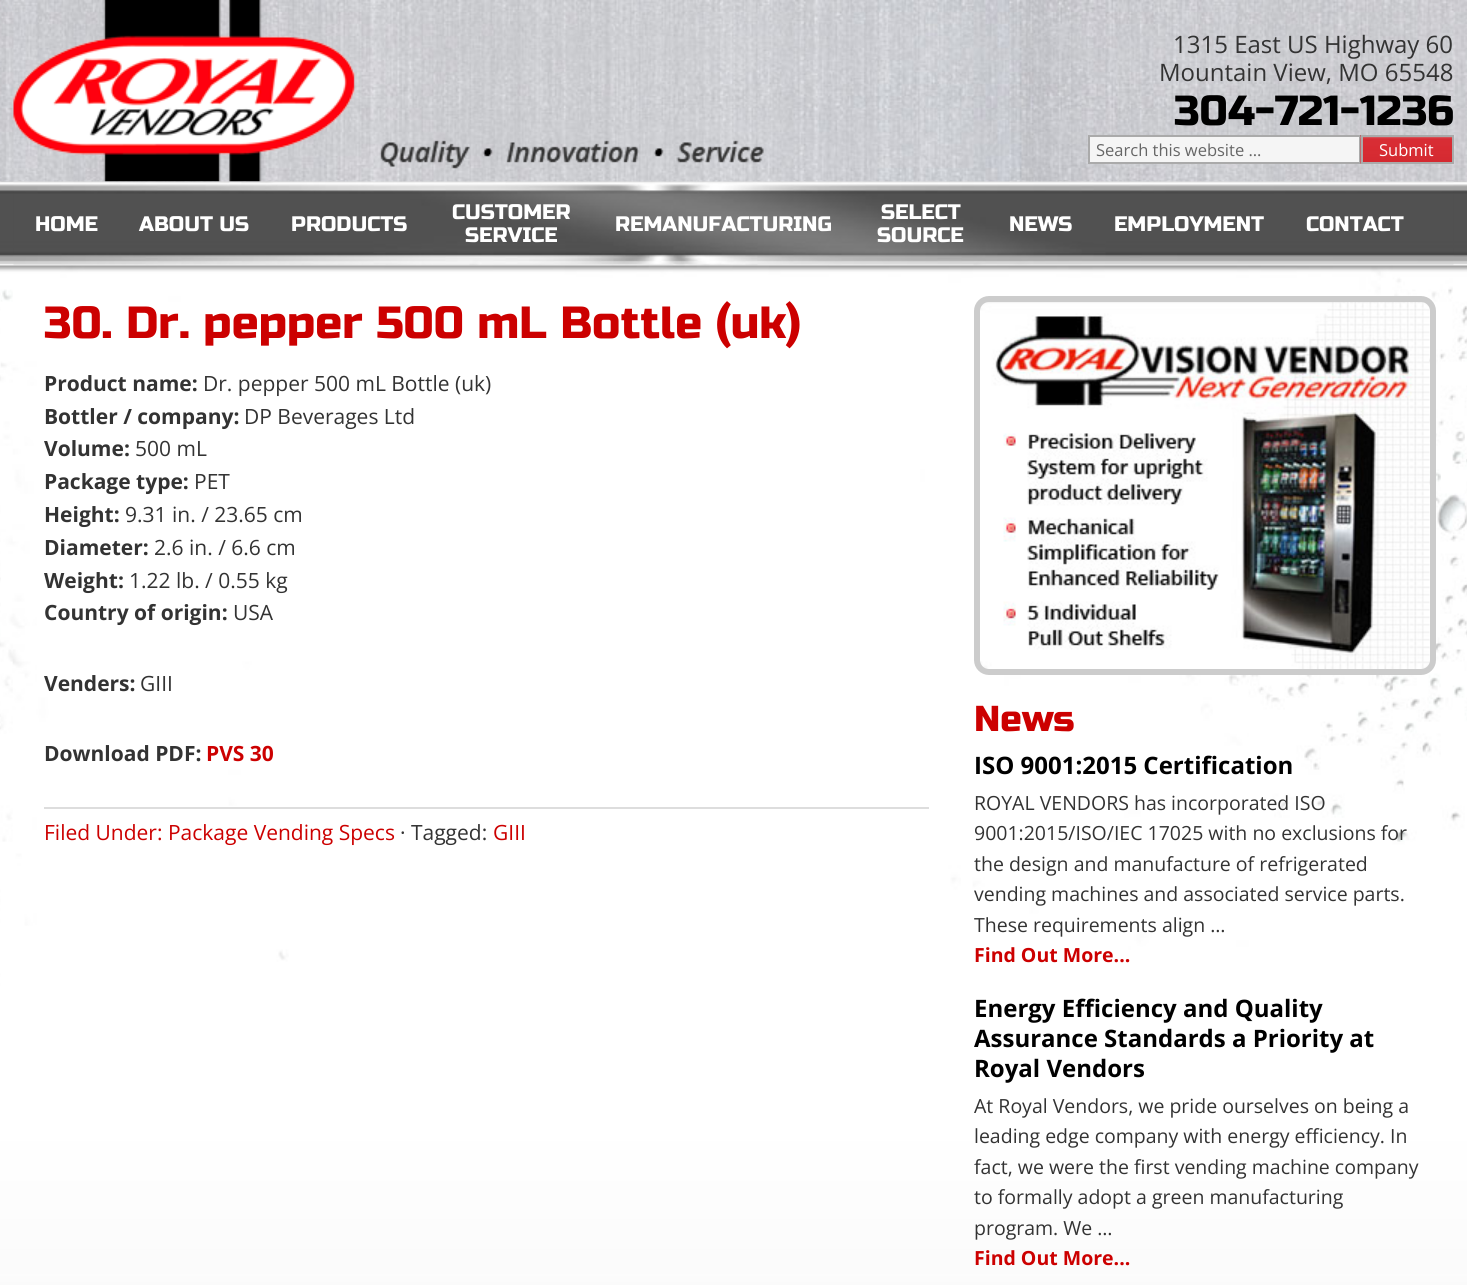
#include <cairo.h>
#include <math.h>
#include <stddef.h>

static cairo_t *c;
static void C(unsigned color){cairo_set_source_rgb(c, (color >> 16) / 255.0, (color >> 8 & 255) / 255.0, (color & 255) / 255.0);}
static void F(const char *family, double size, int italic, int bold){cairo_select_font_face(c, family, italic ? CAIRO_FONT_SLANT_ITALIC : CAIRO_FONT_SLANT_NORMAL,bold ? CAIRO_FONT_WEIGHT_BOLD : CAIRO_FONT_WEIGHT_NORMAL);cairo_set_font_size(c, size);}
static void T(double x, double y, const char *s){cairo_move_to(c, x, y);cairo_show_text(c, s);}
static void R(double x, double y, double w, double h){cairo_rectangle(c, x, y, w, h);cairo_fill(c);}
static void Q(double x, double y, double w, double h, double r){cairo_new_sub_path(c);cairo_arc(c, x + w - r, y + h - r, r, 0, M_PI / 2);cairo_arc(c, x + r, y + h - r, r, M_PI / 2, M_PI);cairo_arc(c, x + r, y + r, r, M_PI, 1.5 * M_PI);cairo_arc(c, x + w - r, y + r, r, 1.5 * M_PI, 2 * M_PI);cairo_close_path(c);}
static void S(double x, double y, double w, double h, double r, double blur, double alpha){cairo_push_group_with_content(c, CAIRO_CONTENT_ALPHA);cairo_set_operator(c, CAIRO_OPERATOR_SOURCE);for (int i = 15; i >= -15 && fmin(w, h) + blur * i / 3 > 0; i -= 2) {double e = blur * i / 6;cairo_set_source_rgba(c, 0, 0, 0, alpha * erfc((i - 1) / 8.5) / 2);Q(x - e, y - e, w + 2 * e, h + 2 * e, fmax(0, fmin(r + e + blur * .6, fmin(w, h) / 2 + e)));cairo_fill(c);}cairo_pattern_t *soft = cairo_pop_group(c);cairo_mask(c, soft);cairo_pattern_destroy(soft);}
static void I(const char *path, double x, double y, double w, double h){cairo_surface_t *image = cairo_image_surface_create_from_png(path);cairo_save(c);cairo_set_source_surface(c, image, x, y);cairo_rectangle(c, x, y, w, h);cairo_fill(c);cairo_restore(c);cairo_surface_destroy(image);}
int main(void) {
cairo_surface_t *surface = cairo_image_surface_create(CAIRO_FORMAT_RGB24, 1467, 1285);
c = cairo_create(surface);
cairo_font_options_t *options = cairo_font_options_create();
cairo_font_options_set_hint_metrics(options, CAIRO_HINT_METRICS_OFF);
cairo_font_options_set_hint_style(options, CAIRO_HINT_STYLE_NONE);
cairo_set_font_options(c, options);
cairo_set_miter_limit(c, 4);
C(0xffffff);
cairo_paint(c);
C(0x999999);
S(0,180,1467,84,0,2,1);
I("4.png",0,181,1467,85);
I("5.png",13,181,1441,85);
I("1.png",0,0,1467,182);
I("2.png",13,0,751,182);
F("Open Sans",24,0,0);
C(0x333333);
T(1173,53,"1315 East US Highway 60");
T(1159,81,"Mountain View, MO 65548");
F("Russo One",42,0,0);
C(0x000000);
T(1174,125,"304-721-1236");
C(0xf5f5f5);
cairo_rectangle(c,1089,136,271,27);
cairo_fill_preserve(c);
C(0xaaaaaa);
cairo_stroke(c);
F("Open Sans",16.5,0,0);
C(0x666666);
T(1096,156,"Search this website …");
I("3.png",1360,135,92,29);
cairo_rectangle(c,1362,136,91,27);
C(0xaaaaaa);
cairo_stroke(c);
C(0xffffff);
T(1379,156,"Submit");
F("Russo One",21,0,0);
T(35,231,"HOME");
T(139,231,"ABOUT US");
T(291,231,"PRODUCTS");
T(452,219,"CUSTOMER");
T(465,242,"SERVICE");
T(615,231,"REMANUFACTURING");
T(881,219,"SELECT");
T(877,242,"SOURCE");
T(1009,231,"NEWS");
T(1114,231,"EMPLOYMENT");
T(1306,231,"CONTACT");
I("6.png",0,265,1467,1020);
F("Russo One",45,0,0);
C(0xcc0000);
T(44,338,"30. Dr. pepper 500 mL Bottle (uk)");
F("Open Sans",21,0,1);
C(0x333333);
T(44,391,"Product name:");
F("Open Sans",21,0,0);
T(203,391,"Dr. pepper 500 mL Bottle (uk)");
F("Open Sans",21,0,1);
T(44,424,"Bottler / company:");
F("Open Sans",21,0,0);
T(244,424,"DP Beverages Ltd");
F("Open Sans",21,0,1);
T(44,456,"Volume:");
F("Open Sans",21,0,0);
T(135,456,"500 mL");
F("Open Sans",21,0,1);
T(44,489,"Package type:");
F("Open Sans",21,0,0);
T(194,489,"PET");
F("Open Sans",21,0,1);
T(44,522,"Height:");
F("Open Sans",21,0,0);
T(125,522,"9.31 in. / 23.65 cm");
F("Open Sans",21,0,1);
T(44,555,"Diameter:");
F("Open Sans",21,0,0);
T(154,555,"2.6 in. / 6.6 cm");
F("Open Sans",21,0,1);
T(44,588,"Weight:");
F("Open Sans",21,0,0);
T(129,588,"1.22 lb. / 0.55 kg");
F("Open Sans",21,0,1);
T(44,620,"Country of origin:");
F("Open Sans",21,0,0);
T(233,620,"USA");
F("Open Sans",21,0,1);
T(44,691,"Venders:");
F("Open Sans",21,0,0);
T(140,691,"GIII");
F("Open Sans",21,0,1);
T(44,761,"Download PDF:");
C(0xcc0000);
T(206,761,"PVS 30");
C(0xdddddd);
R(44,807,885,2);
F("Open Sans",21,0,0);
C(0xcc0000);
T(44,840,"Filed Under: Package Vending Specs");
C(0x333333);
T(400,840,"· Tagged:");
C(0xcc0000);
T(493,840,"GIII");
I("7.png",980,302,450,367);
Q(977,299,456,373,12);
C(0xcccccc);
cairo_set_line_width(c,6);
cairo_stroke(c);
F("Russo One",36,0,0);
C(0xcc0000);
T(974,731,"News");
F("Open Sans",24,0,1);
C(0x000000);
T(974,774,"ISO 9001:2015 Certification");
F("Open Sans",19.5,0,0);
C(0x333333);
T(974,810,"ROYAL VENDORS has incorporated ISO");
T(974,840,"9001:2015/ISO/IEC 17025 with no exclusions for");
T(974,871,"the design and manufacture of refrigerated");
T(974,901,"vending machines and associated service parts.");
T(974,932,"These requirements align …");
F("Open Sans",19.5,0,1);
C(0xcc0000);
T(974,962,"Find Out More...");
F("Open Sans",24,0,1);
C(0x000000);
T(974,1017,"Energy Efficiency and Quality");
T(974,1047,"Assurance Standards a Priority at");
T(974,1077,"Royal Vendors");
F("Open Sans",19.5,0,0);
C(0x333333);
T(974,1113,"At Royal Vendors, we pride ourselves on being a");
T(974,1143,"leading edge company with energy efficiency. In");
T(974,1174,"fact, we were the first vending machine company");
T(974,1204,"to formally adopt a green manufacturing");
T(974,1235,"program. We …");
F("Open Sans",19.5,0,1);
C(0xcc0000);
T(974,1265,"Find Out More...");
cairo_surface_write_to_png(surface, "o.png");
cairo_font_options_destroy(options);
cairo_destroy(c);
cairo_surface_destroy(surface);
return 0;
}
